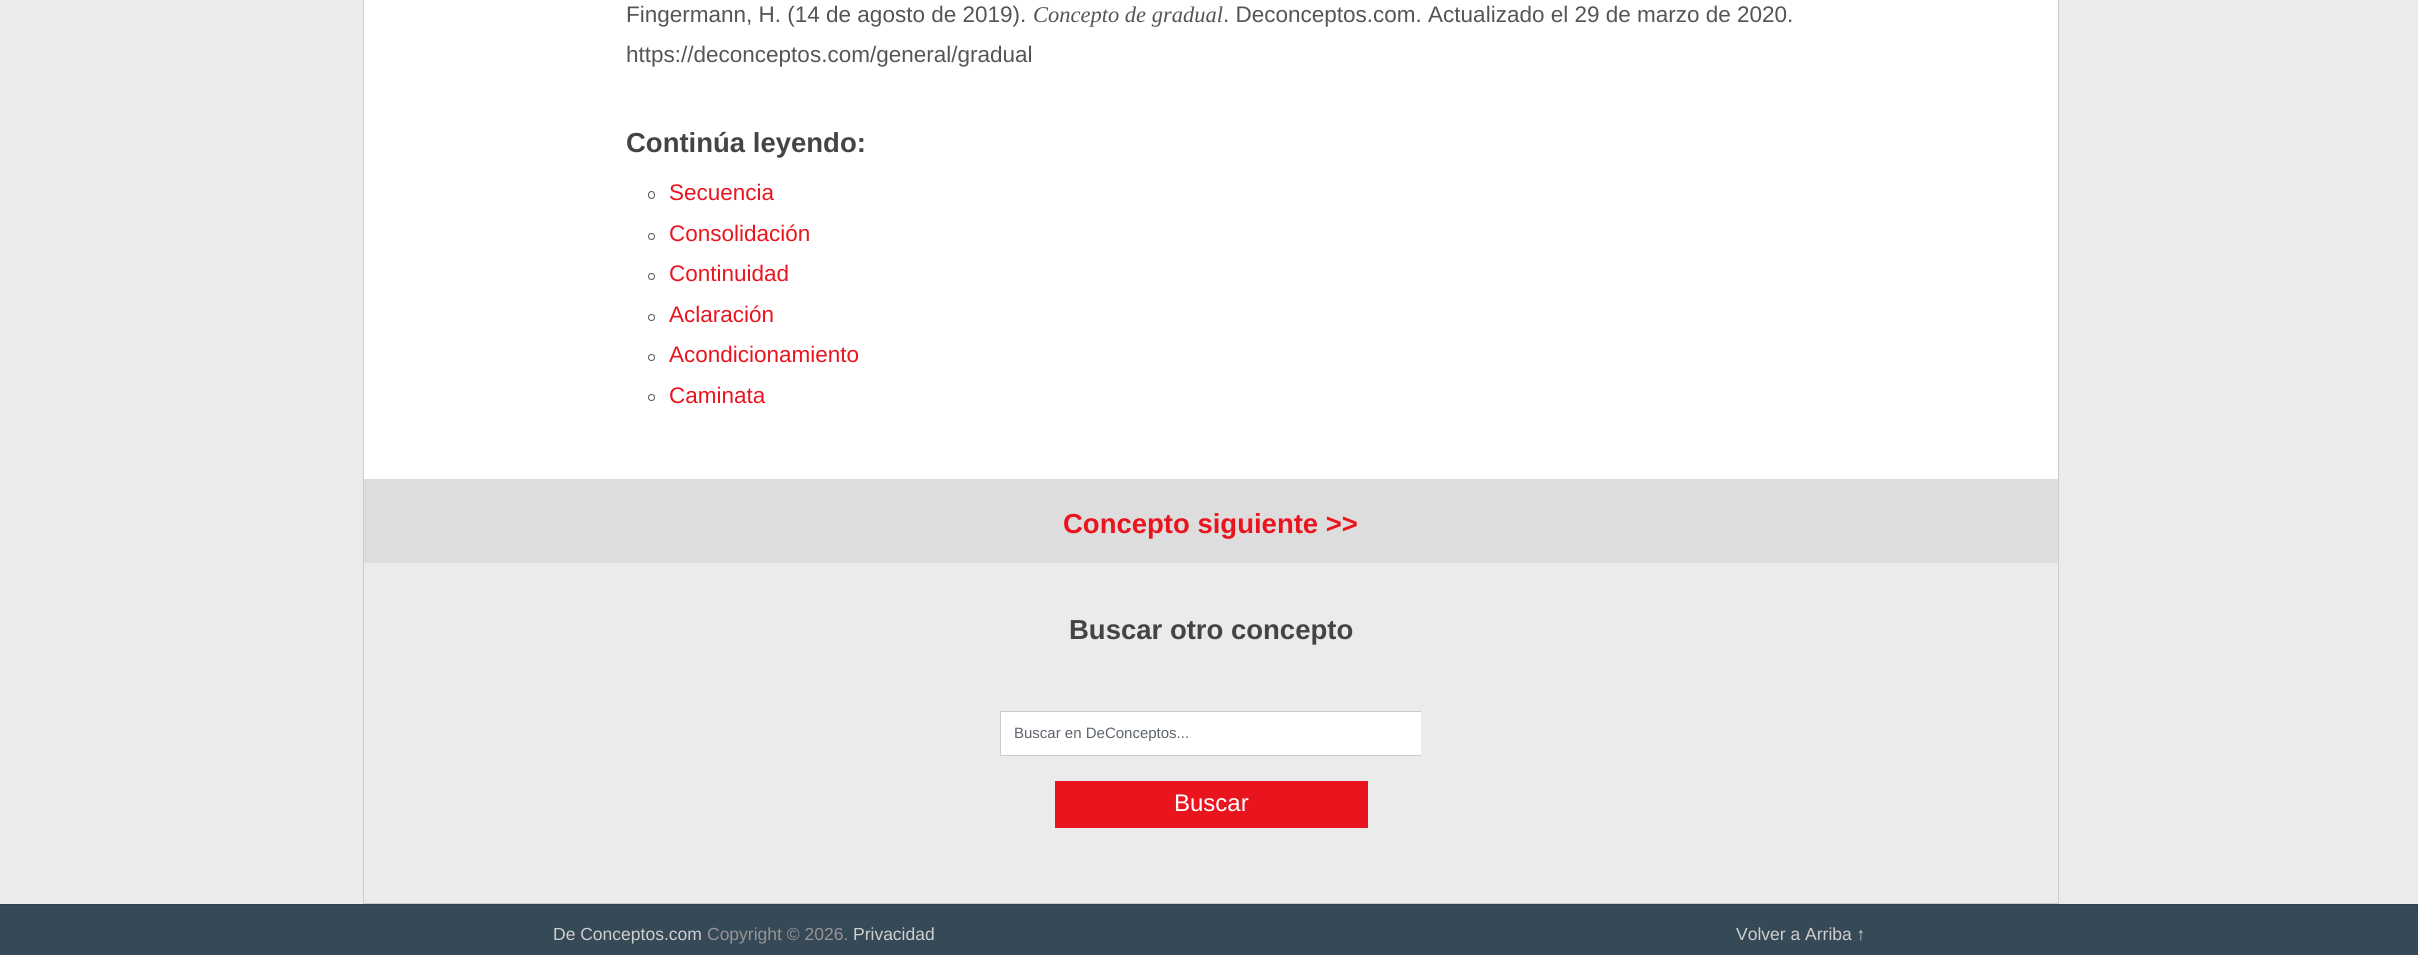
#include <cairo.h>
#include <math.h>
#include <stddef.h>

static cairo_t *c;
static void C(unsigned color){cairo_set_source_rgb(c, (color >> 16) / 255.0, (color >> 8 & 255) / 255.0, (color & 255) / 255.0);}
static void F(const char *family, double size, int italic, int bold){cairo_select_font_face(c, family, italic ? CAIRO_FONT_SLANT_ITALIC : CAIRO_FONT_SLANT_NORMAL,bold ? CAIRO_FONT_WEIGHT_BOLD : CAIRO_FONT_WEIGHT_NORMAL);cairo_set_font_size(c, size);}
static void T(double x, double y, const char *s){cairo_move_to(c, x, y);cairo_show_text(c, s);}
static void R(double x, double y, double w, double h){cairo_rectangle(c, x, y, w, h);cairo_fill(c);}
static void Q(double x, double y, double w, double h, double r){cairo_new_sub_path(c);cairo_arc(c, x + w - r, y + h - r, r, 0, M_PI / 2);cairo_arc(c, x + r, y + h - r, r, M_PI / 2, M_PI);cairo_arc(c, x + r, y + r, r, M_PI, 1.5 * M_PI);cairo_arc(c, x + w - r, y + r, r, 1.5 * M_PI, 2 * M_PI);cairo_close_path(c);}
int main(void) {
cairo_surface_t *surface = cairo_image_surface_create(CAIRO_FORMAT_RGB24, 2418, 955);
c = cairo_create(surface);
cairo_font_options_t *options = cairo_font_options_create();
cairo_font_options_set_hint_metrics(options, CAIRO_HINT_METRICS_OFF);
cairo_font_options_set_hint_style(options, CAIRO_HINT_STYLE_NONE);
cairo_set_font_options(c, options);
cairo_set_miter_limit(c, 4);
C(0xebebeb);
cairo_paint(c);
cairo_rectangle(c,363.5,-.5,1695,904);
C(0xcccccc);
cairo_set_line_width(c,1);
cairo_stroke(c);
C(0xffffff);
R(364,0,1694,479);
F("Liberation Sans",22.5,0,0);
C(0x555555);
T(626,22,"Fingermann, H. (14 de agosto de 2019).");
F("Liberation Serif",22.5,1,0);
T(1033,22,"Concepto de gradual");
F("Liberation Sans",22.5,0,0);
T(1223,22,". Deconceptos.com. Actualizado el 29 de marzo de 2020.");
T(626,62,"https://deconceptos.com/general/gradual");
F("Liberation Sans",27.5,0,1);
C(0x444444);
T(626,152,"Continúa leyendo:");
Q(648.5,191.5,6,7,3);
C(0x555555);
cairo_stroke(c);
F("Liberation Sans",22.5,0,0);
C(0xea141f);
T(669,200,"Secuencia");
cairo_new_path(c);
cairo_arc(c,651.5,236.5,3,0,2 * M_PI);
C(0x555555);
cairo_stroke(c);
C(0xea141f);
T(669,241,"Consolidación");
cairo_new_path(c);
cairo_arc(c,651.5,276.5,3,0,2 * M_PI);
C(0x555555);
cairo_stroke(c);
C(0xea141f);
T(669,281,"Continuidad");
cairo_new_path(c);
cairo_arc(c,651.5,317.5,3,0,2 * M_PI);
C(0x555555);
cairo_stroke(c);
C(0xea141f);
T(669,322,"Aclaración");
cairo_new_path(c);
cairo_arc(c,651.5,357.5,3,0,2 * M_PI);
C(0x555555);
cairo_stroke(c);
C(0xea141f);
T(669,362,"Acondicionamiento");
cairo_new_path(c);
cairo_arc(c,651.5,397.5,3,0,2 * M_PI);
C(0x555555);
cairo_stroke(c);
C(0xea141f);
T(669,403,"Caminata");
C(0xdddddd);
R(364,479,1694,84);
F("Liberation Sans",27.5,0,1);
C(0xea141f);
T(1063,533,"Concepto siguiente >>");
C(0x444444);
T(1069,639,"Buscar otro concepto");
C(0xffffff);
R(1001,712,420,43);
C(0xcccccc);
R(1000,711,421,1);
R(1000,755,421,1);
R(1000,711,1,45);
F("Liberation Sans",15,0,0);
C(0x5e656d);
T(1014,738,"Buscar en DeConceptos...");
C(0xea141f);
R(1055,781,313,47);
F("Liberation Sans",24,0,0);
C(0xffffff);
T(1174,811,"Buscar");
C(0x364956);
R(0,905,2418,50);
C(0x30404c);
R(0,904,2418,1);
F("Liberation Sans",17.5,0,0);
C(0xcfcfcf);
T(553,940,"De Conceptos.com");
C(0x979494);
T(707,940,"Copyright © 2026.");
C(0xcfcfcf);
T(853,940,"Privacidad");
T(1736,940,"Volver a Arriba ↑");
cairo_surface_write_to_png(surface, "o.png");
cairo_font_options_destroy(options);
cairo_destroy(c);
cairo_surface_destroy(surface);
return 0;
}
